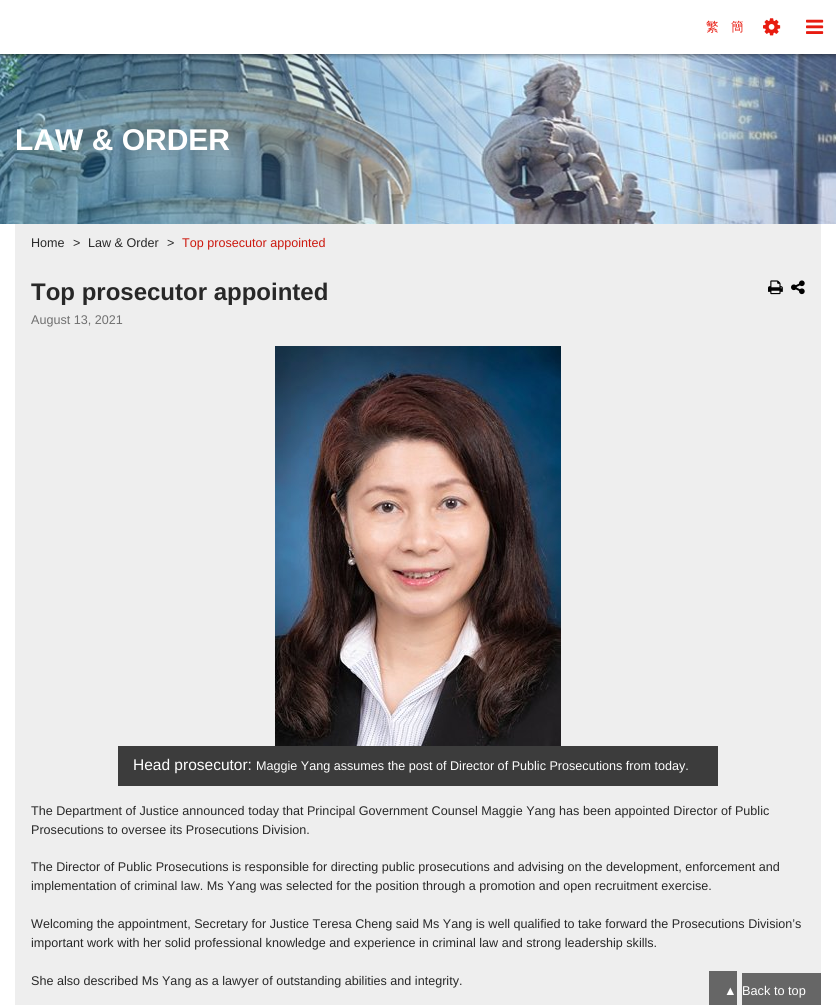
#include <cairo.h>
#include <math.h>
#include <stddef.h>

static cairo_t *c;
static void C(unsigned color){cairo_set_source_rgb(c, (color >> 16) / 255.0, (color >> 8 & 255) / 255.0, (color & 255) / 255.0);}
static void F(const char *family, double size, int italic, int bold){cairo_select_font_face(c, family, italic ? CAIRO_FONT_SLANT_ITALIC : CAIRO_FONT_SLANT_NORMAL,bold ? CAIRO_FONT_WEIGHT_BOLD : CAIRO_FONT_WEIGHT_NORMAL);cairo_set_font_size(c, size);}
static void T(double x, double y, const char *s){cairo_move_to(c, x, y);cairo_show_text(c, s);}
static void R(double x, double y, double w, double h){cairo_rectangle(c, x, y, w, h);cairo_fill(c);}
static void Q(double x, double y, double w, double h, double r){cairo_new_sub_path(c);cairo_arc(c, x + w - r, y + h - r, r, 0, M_PI / 2);cairo_arc(c, x + r, y + h - r, r, M_PI / 2, M_PI);cairo_arc(c, x + r, y + r, r, M_PI, 1.5 * M_PI);cairo_arc(c, x + w - r, y + r, r, 1.5 * M_PI, 2 * M_PI);cairo_close_path(c);}
static void S(double x, double y, double w, double h, double r, double blur, double alpha){cairo_push_group_with_content(c, CAIRO_CONTENT_ALPHA);cairo_set_operator(c, CAIRO_OPERATOR_SOURCE);for (int i = 15; i >= -15 && fmin(w, h) + blur * i / 3 > 0; i -= 2) {double e = blur * i / 6;cairo_set_source_rgba(c, 0, 0, 0, alpha * erfc((i - 1) / 8.5) / 2);Q(x - e, y - e, w + 2 * e, h + 2 * e, fmax(0, fmin(r + e + blur * .6, fmin(w, h) / 2 + e)));cairo_fill(c);}cairo_pattern_t *soft = cairo_pop_group(c);cairo_mask(c, soft);cairo_pattern_destroy(soft);}
static void I(const char *path, double x, double y, double w, double h){cairo_surface_t *image = cairo_image_surface_create_from_png(path);cairo_save(c);cairo_set_source_surface(c, image, x, y);cairo_rectangle(c, x, y, w, h);cairo_fill(c);cairo_restore(c);cairo_surface_destroy(image);}
int main(void) {
cairo_surface_t *surface = cairo_image_surface_create(CAIRO_FORMAT_RGB24, 836, 1005);
c = cairo_create(surface);
cairo_font_options_t *options = cairo_font_options_create();
cairo_font_options_set_hint_metrics(options, CAIRO_HINT_METRICS_OFF);
cairo_font_options_set_hint_style(options, CAIRO_HINT_STYLE_NONE);
cairo_set_font_options(c, options);
cairo_set_miter_limit(c, 4);
C(0xffffff);
cairo_paint(c);
I("3.png",0,54,836,170);
cairo_save(c);
cairo_rectangle(c,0,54,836,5);
cairo_clip(c);
C(0x000000);
S(0,1,836,54,0,2.5,.5);
cairo_restore(c);
F("WenQuanYi Zen Hei Medium",12.75,0,0);
C(0xe81b10);
T(706,31,"繁");
T(731,31,"簡");
I("1.png",763,18,18,18);
I("2.png",806,19,18,15);
F("Liberation Sans",30,0,1);
C(0xffffff);
T(15,150,"LAW & ORDER");
C(0xeeeeee);
R(15,224,806,781);
F("Liberation Sans",12.6,0,0);
C(0x282828);
T(31,247,"Home");
T(73,247,">");
T(88,247,"Law & Order");
T(167,247,">");
C(0xcc180e);
T(182,247,"Top prosecutor appointed");
F("Liberation Sans",24,0,1);
C(0x282828);
T(31,300,"Top prosecutor appointed");
I("4.png",768,280,15,15);
I("5.png",791,280,14,15);
F("Liberation Sans",12.6,0,0);
C(0x707070);
T(31,324,"August 13, 2021");
I("6.png",275,346,286,400);
C(0x3c3c3c);
R(118,746,600,40);
F("Liberation Sans",15.5,0,0);
C(0xffffff);
T(133,770,"Head prosecutor:");
F("Liberation Sans",12.6,0,0);
T(256,770,"Maggie Yang assumes the post of Director of Public Prosecutions from today.");
C(0x282828);
T(31,815,"The Department of Justice announced today that Principal Government Counsel Maggie Yang has been appointed Director of Public");
T(31,834,"Prosecutions to oversee its Prosecutions Division.");
T(31,871,"The Director of Public Prosecutions is responsible for directing public prosecutions and advising on the development, enforcement and");
T(31,890,"implementation of criminal law. Ms Yang was selected for the position through a promotion and open recruitment exercise.");
T(31,928,"Welcoming the appointment, Secretary for Justice Teresa Cheng said Ms Yang is well qualified to take forward the Prosecutions Division’s");
T(31,947,"important work with her solid professional knowledge and experience in criminal law and strong leadership skills.");
T(31,985,"She also described Ms Yang as a lawyer of outstanding abilities and integrity.");
C(0x666666);
R(709,971,28,34);
R(742,973,79,32);
F("Liberation Sans",12.75,0,0);
C(0xffffff);
T(724,995,"▲");
T(742,995,"Back to top");
cairo_surface_write_to_png(surface, "o.png");
cairo_font_options_destroy(options);
cairo_destroy(c);
cairo_surface_destroy(surface);
return 0;
}
